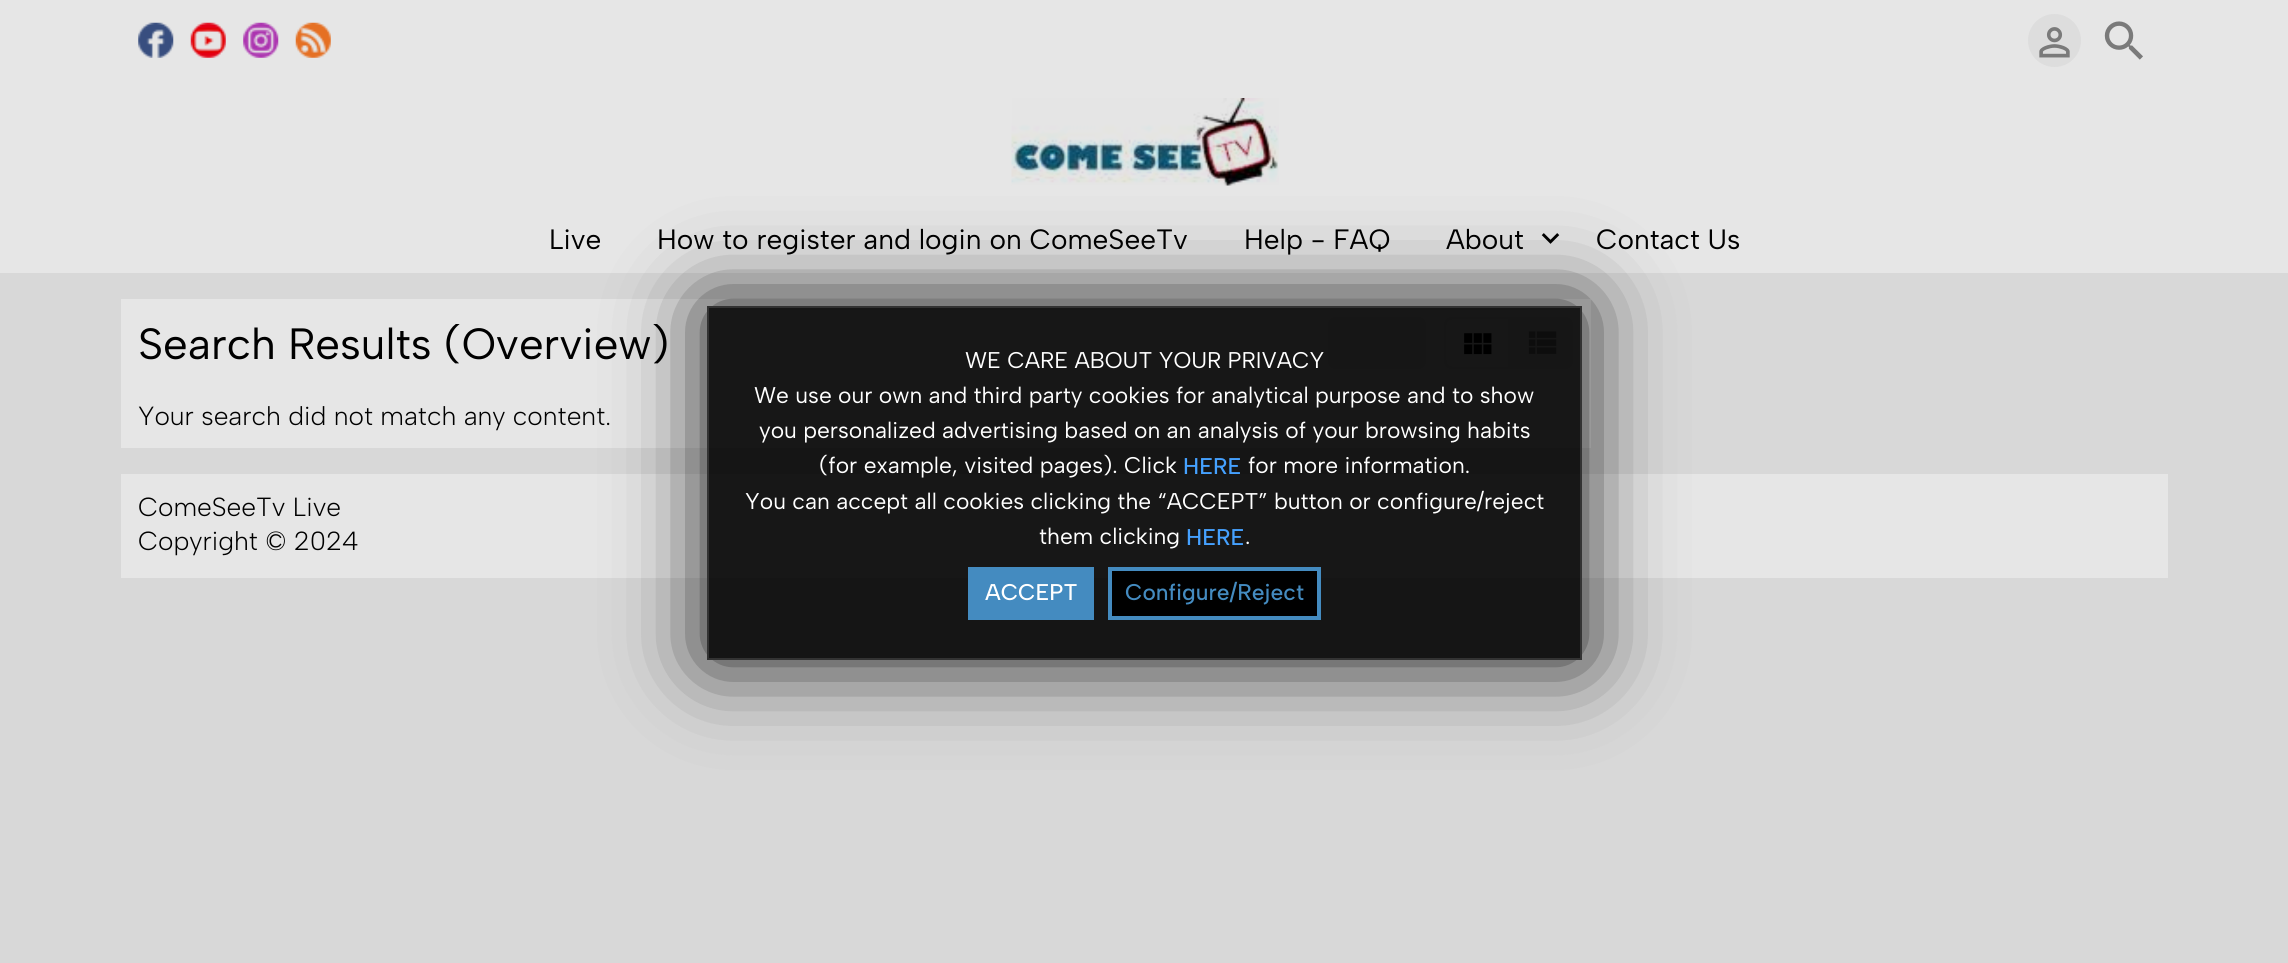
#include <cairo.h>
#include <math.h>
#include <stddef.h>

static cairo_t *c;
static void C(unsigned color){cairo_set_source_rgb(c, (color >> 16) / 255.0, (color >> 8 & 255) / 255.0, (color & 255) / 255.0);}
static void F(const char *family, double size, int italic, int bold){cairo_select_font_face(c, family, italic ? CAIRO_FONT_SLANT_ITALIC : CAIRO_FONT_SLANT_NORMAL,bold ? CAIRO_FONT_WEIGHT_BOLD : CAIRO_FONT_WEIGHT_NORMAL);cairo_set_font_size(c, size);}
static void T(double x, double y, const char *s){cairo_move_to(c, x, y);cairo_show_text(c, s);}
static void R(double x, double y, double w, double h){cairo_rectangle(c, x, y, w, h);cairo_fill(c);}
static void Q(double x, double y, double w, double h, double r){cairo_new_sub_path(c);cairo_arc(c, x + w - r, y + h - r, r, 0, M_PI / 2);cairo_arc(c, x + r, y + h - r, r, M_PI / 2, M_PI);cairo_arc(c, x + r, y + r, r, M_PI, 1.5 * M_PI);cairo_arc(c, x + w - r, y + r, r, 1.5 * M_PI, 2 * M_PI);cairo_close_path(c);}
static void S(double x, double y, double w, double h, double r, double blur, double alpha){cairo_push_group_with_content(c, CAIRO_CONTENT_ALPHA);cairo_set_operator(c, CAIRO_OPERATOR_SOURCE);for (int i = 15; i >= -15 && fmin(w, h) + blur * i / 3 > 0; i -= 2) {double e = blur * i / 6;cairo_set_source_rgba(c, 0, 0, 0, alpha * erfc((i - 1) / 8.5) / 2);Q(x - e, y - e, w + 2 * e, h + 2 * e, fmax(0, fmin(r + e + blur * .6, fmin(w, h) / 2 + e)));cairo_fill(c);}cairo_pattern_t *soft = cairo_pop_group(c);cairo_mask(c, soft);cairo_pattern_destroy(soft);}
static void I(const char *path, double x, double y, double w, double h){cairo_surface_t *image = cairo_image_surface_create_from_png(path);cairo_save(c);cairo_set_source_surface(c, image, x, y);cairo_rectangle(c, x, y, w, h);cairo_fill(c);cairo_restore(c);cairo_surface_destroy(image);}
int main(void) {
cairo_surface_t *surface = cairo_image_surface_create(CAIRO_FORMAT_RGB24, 2288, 963);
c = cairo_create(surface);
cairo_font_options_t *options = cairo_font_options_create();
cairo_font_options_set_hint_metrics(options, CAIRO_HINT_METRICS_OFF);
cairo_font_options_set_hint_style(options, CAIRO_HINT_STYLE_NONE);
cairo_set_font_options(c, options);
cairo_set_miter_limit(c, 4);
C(0xd8d8d8);
cairo_paint(c);
C(0xe6e6e6);
R(0,0,2288,273);
I("1.png",1011,98,268,88);
I("2.png",138,22,36,36);
I("3.png",190,22,36,36);
I("4.png",243,22,36,36);
I("5.png",295,22,36,36);
C(0xdddddd);
cairo_arc(c,2054.5,40.5,26.5,0,2 * M_PI);
cairo_fill(c);
I("6.png",2039,27,31,31);
I("7.png",2104,21,39,39);
F("Albert Sans",28,0,0);
C(0x000000);
T(549,249,"Live");
T(657,249,"How to register and login on ComeSeeTv");
T(1244,249,"Help - FAQ");
T(1446,249,"About");
I("8.png",1541,233,19,11);
T(1596,249,"Contact Us");
C(0xe6e6e6);
R(121,299,1470,149);
F("Albert Sans",43.75,0,0);
C(0x000000);
T(138,359,"Search Results (Overview)");
C(0xdddddd);
Q(1328,317,98,52,9);
cairo_fill(c);
cairo_new_path(c);
cairo_move_to(c,1453,318);
cairo_line_to(c,1509,318);
cairo_line_to(c,1509,368);
cairo_line_to(c,1453,368);
cairo_curve_to(c,1448.5,368,1445,364.5,1445,360);
cairo_line_to(c,1445,326);
cairo_curve_to(c,1445,321.5,1448.5,318,1453,318);
cairo_close_path(c);
cairo_stroke(c);
I("9.png",1464,333,28,22);
cairo_new_path(c);
cairo_move_to(c,1510,317);
cairo_line_to(c,1564,317);
cairo_curve_to(c,1569,317,1573,321,1573,326);
cairo_line_to(c,1573,360);
cairo_curve_to(c,1573,365,1569,369,1564,369);
cairo_line_to(c,1510,369);
cairo_close_path(c);
cairo_fill(c);
I("10.png",1528,331,29,23);
F("Albert Sans Light",26.25,0,0);
C(0x000000);
T(138,425,"Your search did not match any content.");
C(0xe6e6e6);
R(121,474,2047,104);
C(0x000000);
T(138,516,"ComeSeeTv Live");
T(138,550,"Copyright © 2024");
cairo_save(c);
cairo_set_fill_rule(c,CAIRO_FILL_RULE_EVEN_ODD);
cairo_new_path(c);
cairo_move_to(c,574,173);
cairo_line_to(c,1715,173);
cairo_line_to(c,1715,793);
cairo_line_to(c,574,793);
cairo_close_path(c);
cairo_move_to(c,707,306);
cairo_line_to(c,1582,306);
cairo_line_to(c,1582,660);
cairo_line_to(c,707,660);
cairo_close_path(c);
cairo_clip(c);
C(0x000000);
S(707,306,875,354,0,44,.9);
cairo_restore(c);
cairo_set_source_rgba(c,0,0,0,0.9);
cairo_rectangle(c,708,307,873,352);
cairo_fill_preserve(c);
C(0x333333);
cairo_stroke(c);
F("Albert Sans",22.75,0,0);
C(0xffffff);
T(965,368,"WE CARE ABOUT YOUR PRIVACY");
T(754,403,"We use our own and third party cookies for analytical purpose and to show");
T(759,438,"you personalized advertising based on an analysis of your browsing habits");
T(819,473,"(for example, visited pages). Click");
F("Albert Sans Medium",22.75,0,0);
C(0x45a1ff);
T(1183,474,"HERE");
F("Albert Sans",22.75,0,0);
C(0xffffff);
T(1248,473,"for more information.");
T(745,509,"You can accept all cookies clicking the “ACCEPT” button or configure/reject");
T(1039,544,"them clicking");
F("Albert Sans Medium",22.75,0,0);
C(0x45a1ff);
T(1186,545,"HERE");
F("Albert Sans",22.75,0,0);
C(0xffffff);
T(1245,544,".");
C(0x448bc0);
R(968,567,126,53);
F("Albert Sans Medium",22.75,0,0);
C(0xffffff);
T(985,600,"ACCEPT");
C(0x000000);
cairo_rectangle(c,1110,569,209,49);
cairo_fill_preserve(c);
C(0x448bc0);
cairo_set_line_width(c,4);
cairo_stroke(c);
T(1125,600,"Configure/Reject");
cairo_surface_write_to_png(surface, "o.png");
cairo_font_options_destroy(options);
cairo_destroy(c);
cairo_surface_destroy(surface);
return 0;
}
